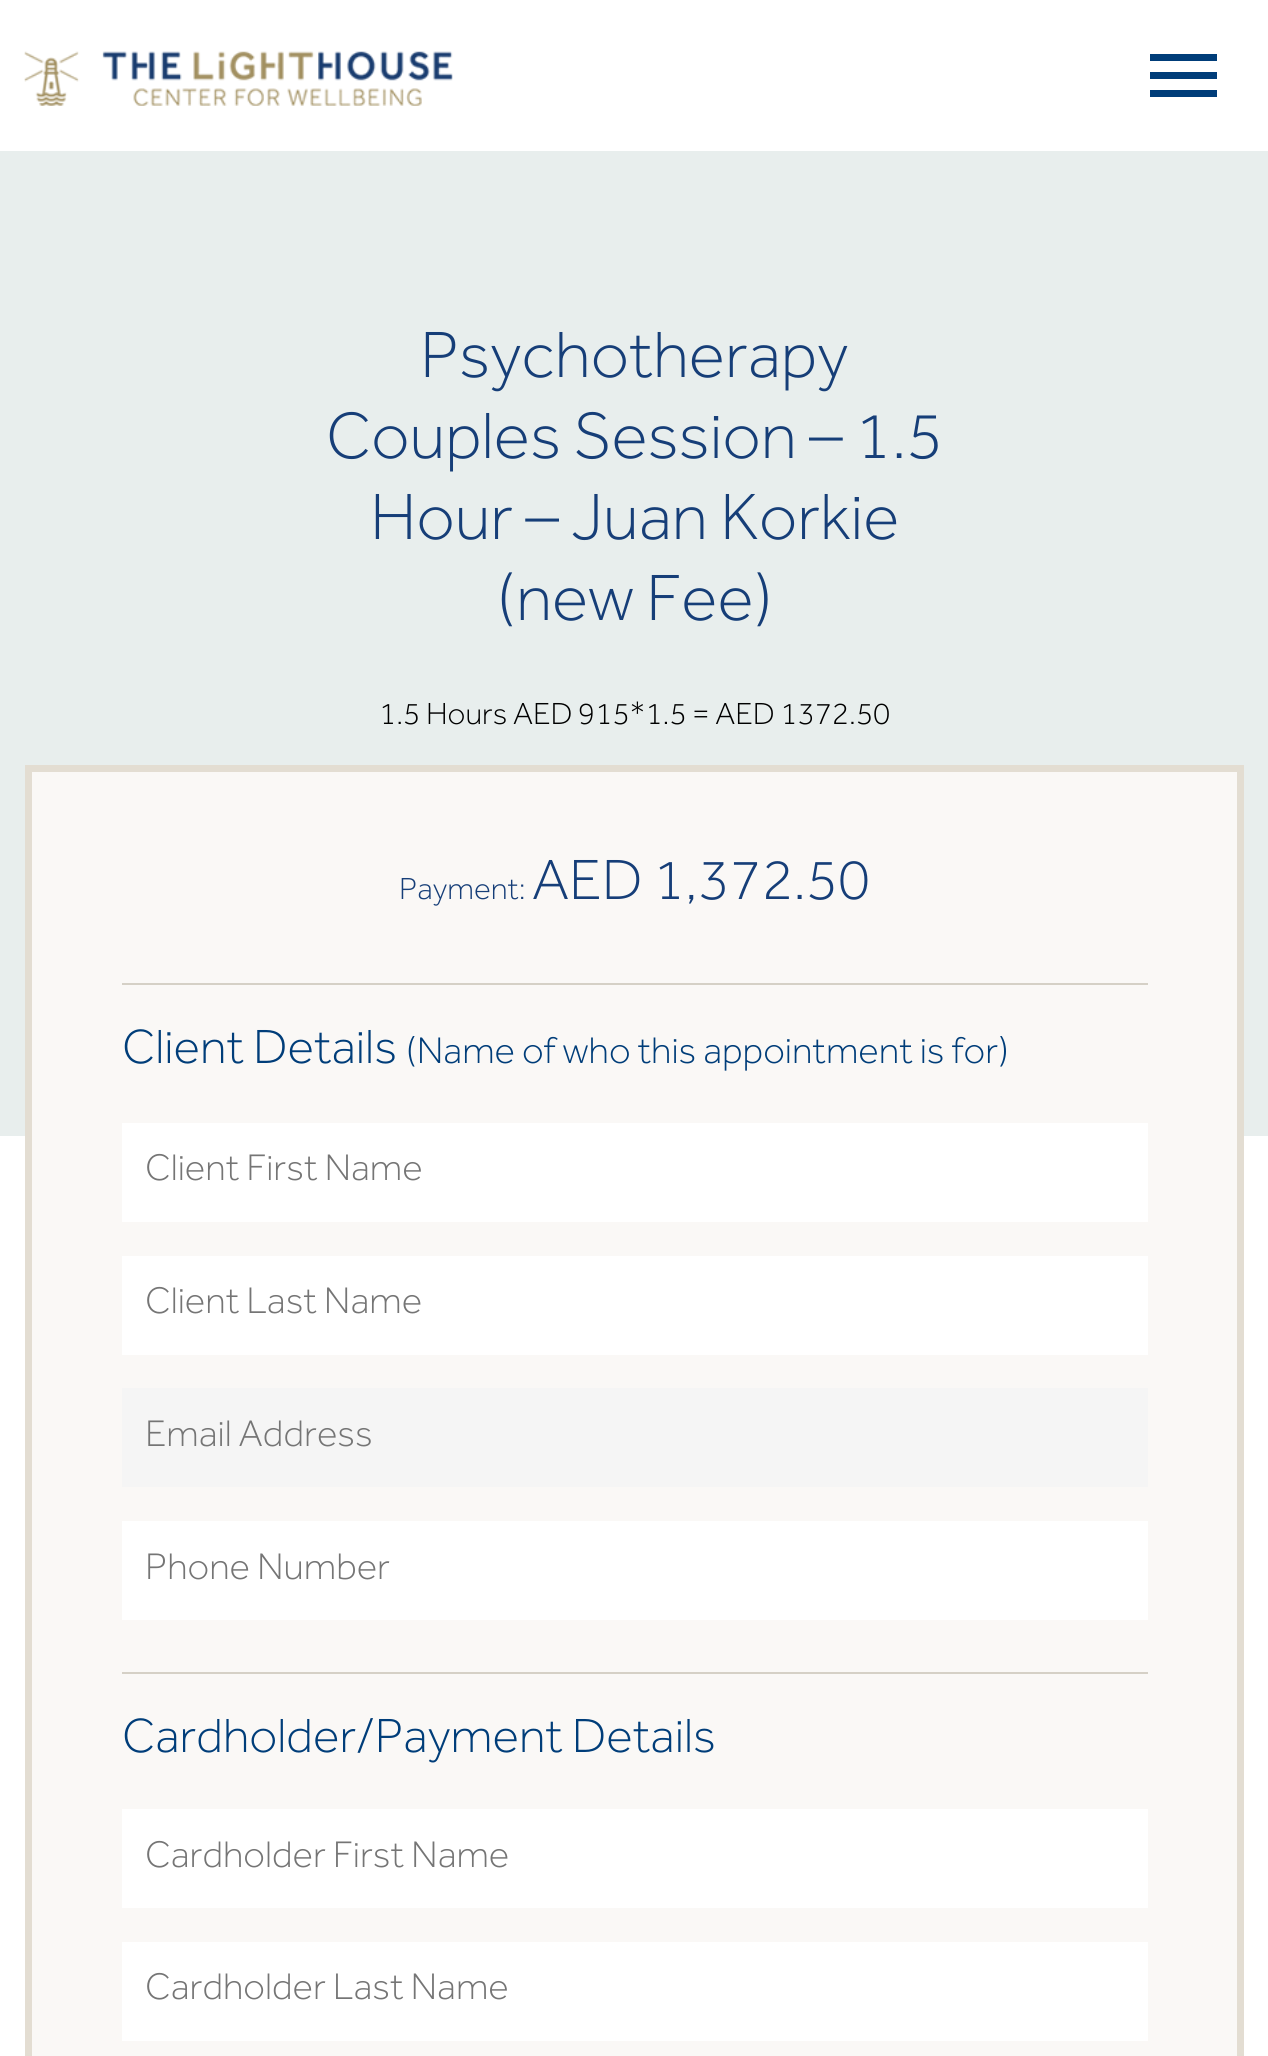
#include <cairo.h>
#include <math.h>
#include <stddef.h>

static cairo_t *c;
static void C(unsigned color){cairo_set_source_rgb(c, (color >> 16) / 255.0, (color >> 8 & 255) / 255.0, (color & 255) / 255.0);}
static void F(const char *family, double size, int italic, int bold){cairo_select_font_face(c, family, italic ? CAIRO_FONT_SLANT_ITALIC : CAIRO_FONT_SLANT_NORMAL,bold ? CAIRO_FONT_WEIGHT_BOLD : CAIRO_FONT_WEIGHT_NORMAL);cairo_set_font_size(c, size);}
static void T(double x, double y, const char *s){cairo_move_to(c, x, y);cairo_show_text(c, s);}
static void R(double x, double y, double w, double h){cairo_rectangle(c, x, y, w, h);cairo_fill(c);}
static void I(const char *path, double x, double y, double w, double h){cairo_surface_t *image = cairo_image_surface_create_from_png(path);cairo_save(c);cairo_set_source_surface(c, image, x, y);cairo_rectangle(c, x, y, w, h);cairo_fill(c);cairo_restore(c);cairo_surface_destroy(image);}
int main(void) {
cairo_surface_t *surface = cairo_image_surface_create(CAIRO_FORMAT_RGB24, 1268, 2056);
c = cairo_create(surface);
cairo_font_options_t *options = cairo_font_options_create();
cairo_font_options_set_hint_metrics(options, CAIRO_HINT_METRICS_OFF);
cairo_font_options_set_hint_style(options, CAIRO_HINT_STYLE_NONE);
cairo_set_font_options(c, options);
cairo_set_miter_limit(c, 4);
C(0xffffff);
cairo_paint(c);
I("1.png",24,51,429,55);
C(0x003d79);
R(1150,54,67,7);
R(1150,72,67,7);
R(1150,90,67,7);
C(0xe8eeed);
R(0,151,1268,985);
F("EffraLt",67.5,0,0);
C(0x163e78);
T(420,377,"Psychotherapy");
T(326,458,"Couples Session – 1.5");
T(370,539,"Hour – Juan Korkie");
T(497,620,"(new Fee)");
F("EffraLt",31.5,0,0);
C(0x000000);
T(379,724,"1.5 Hours AED 915*1.5 = AED 1372.50");
C(0xfaf8f6);
cairo_rectangle(c,28.5,768.5,1212,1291);
cairo_fill_preserve(c);
C(0xe3ddd2);
cairo_set_line_width(c,7);
cairo_stroke(c);
C(0x163e78);
T(399,899,"Payment:");
F("EffraLt",58.5,0,0);
T(532,899,"AED 1,372.50");
C(0xd5d0c6);
R(122,983,1026,2);
F("EffraLt",49.5,0,0);
C(0x003d79);
T(122,1063,"Client Details");
F("EffraLt",38.25,0,0);
T(406,1063,"(Name of who this appointment is for)");
C(0xffffff);
R(122,1123,1026,99);
C(0x757575);
T(145,1180,"Client First Name");
C(0xffffff);
R(122,1256,1026,99);
C(0x757575);
T(145,1313,"Client Last Name");
C(0xf5f5f5);
R(122,1388,1026,99);
C(0x757575);
T(145,1446,"Email Address");
C(0xffffff);
R(122,1521,1026,99);
C(0x757575);
T(145,1579,"Phone Number");
C(0xd5d0c6);
R(122,1672,1026,2);
F("EffraLt",49.5,0,0);
C(0x003d79);
T(122,1752,"Cardholder/Payment Details");
C(0xffffff);
R(122,1809,1026,99);
F("EffraLt",38.25,0,0);
C(0x757575);
T(145,1867,"Cardholder First Name");
C(0xffffff);
R(122,1942,1026,99);
C(0x757575);
T(145,1999,"Cardholder Last Name");
cairo_surface_write_to_png(surface, "o.png");
cairo_font_options_destroy(options);
cairo_destroy(c);
cairo_surface_destroy(surface);
return 0;
}
